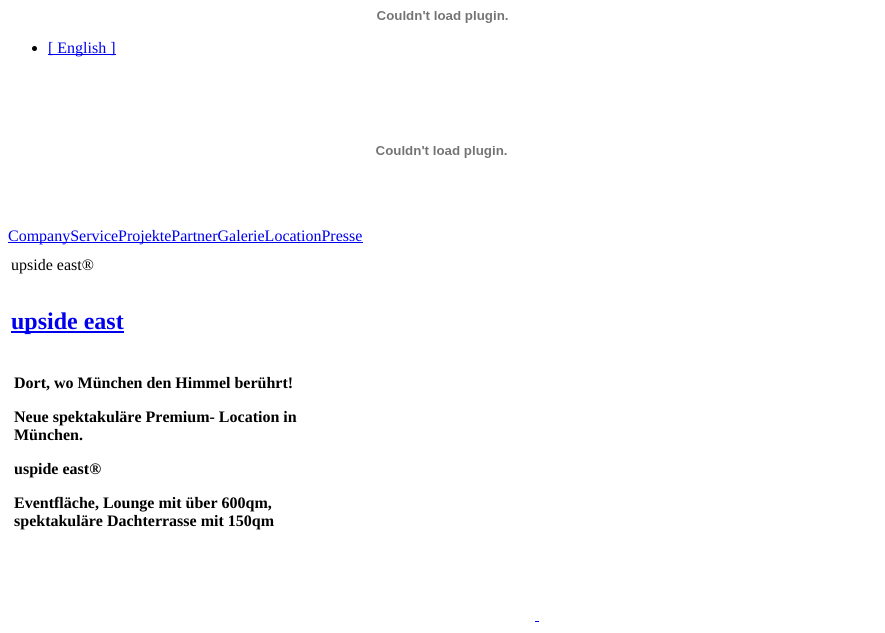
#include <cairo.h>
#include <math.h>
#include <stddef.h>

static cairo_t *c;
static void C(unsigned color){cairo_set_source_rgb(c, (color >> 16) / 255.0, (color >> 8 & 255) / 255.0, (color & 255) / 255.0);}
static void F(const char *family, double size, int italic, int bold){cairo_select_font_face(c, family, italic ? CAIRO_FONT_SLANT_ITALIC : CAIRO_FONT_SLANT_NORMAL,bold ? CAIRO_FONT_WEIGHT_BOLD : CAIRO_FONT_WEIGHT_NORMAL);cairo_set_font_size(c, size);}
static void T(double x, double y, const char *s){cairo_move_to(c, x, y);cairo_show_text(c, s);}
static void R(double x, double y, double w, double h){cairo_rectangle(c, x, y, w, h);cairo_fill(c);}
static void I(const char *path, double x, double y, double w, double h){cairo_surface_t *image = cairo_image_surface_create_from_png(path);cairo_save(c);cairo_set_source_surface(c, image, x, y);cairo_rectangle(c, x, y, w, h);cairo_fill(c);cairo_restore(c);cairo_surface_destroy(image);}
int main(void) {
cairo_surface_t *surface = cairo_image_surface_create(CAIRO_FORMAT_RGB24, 885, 633);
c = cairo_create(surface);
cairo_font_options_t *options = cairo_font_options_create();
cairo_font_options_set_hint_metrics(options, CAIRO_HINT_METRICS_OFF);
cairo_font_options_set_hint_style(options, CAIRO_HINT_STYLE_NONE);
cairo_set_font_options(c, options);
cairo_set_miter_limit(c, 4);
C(0xffffff);
cairo_paint(c);
I("1.png",377,11,131,12);
C(0x000000);
cairo_arc(c,34.5,48.5,2.5,0,2 * M_PI);
cairo_fill(c);
C(0x0000ee);
R(48,54,68,1);
F("Liberation Serif",16,0,0);
T(48,53,"[ English ]");
I("1.png",376,146,131,12);
R(8,242,62,1);
T(8,241,"CompanyService");
R(70,242,293,1);
T(118,241,"ProjektePartnerGalerieLocationPresse");
C(0x000000);
T(11,270,"upside east®");
C(0x0000ee);
R(11,331,113,2);
F("Liberation Serif",24,0,1);
T(11,329,"upside east");
F("Liberation Serif",16,0,1);
C(0x000000);
T(14,388,"Dort, wo München den Himmel berührt!");
T(14,422,"Neue spektakuläre Premium- Location in");
T(14,440,"München.");
T(14,474,"uspide east®");
T(14,508,"Eventfläche, Lounge mit über 600qm,");
T(14,526,"spektakuläre Dachterrasse mit 150qm");
C(0x0000ee);
R(535,621,4,1);
cairo_surface_write_to_png(surface, "o.png");
cairo_font_options_destroy(options);
cairo_destroy(c);
cairo_surface_destroy(surface);
return 0;
}
